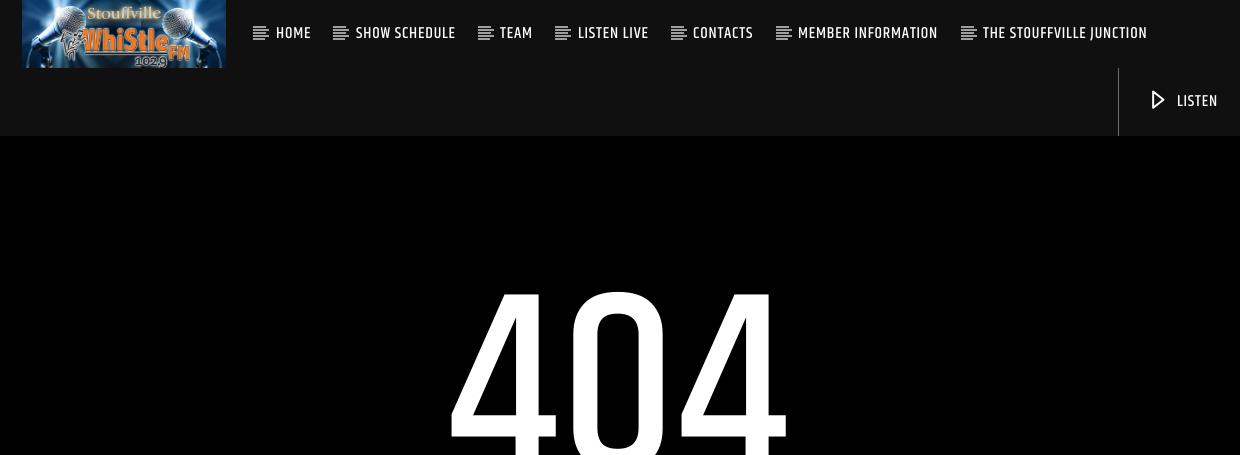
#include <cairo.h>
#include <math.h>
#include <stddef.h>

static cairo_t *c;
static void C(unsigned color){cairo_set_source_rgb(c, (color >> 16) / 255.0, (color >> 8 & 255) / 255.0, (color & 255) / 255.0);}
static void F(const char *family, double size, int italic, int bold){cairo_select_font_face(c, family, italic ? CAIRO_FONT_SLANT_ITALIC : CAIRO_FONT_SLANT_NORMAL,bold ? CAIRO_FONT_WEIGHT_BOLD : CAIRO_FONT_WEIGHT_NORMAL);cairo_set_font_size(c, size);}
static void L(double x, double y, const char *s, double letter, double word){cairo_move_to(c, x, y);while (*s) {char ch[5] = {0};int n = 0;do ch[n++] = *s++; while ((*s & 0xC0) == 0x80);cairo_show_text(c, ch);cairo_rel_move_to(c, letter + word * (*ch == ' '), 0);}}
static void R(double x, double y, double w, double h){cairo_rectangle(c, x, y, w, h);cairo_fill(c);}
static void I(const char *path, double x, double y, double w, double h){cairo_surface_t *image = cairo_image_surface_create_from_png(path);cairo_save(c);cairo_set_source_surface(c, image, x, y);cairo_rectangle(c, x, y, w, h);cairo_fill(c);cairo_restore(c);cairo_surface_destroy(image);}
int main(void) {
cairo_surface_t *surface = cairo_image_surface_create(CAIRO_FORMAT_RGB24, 1240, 455);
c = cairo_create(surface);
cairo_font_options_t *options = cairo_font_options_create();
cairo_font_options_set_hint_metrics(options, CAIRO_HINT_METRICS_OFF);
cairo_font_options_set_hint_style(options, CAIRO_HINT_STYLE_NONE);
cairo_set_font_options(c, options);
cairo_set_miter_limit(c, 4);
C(0x000000);
cairo_paint(c);
C(0x101010);
R(0,0,1240,136);
I("1.png",22,0,204,68);
C(0x9f9f9f);
R(253,38,12,2);
R(253,26,13,2);
R(253,32,13,2);
F("Khand Medium",16,0,0);
C(0xffffff);
L(276,38,"HOME",.8,0);
C(0x9f9f9f);
R(253,29,16,2);
R(253,35,16,2);
R(333,38,12,2);
R(333,26,13,2);
R(333,32,13,2);
C(0xffffff);
L(356,38,"SHOW SCHEDULE",.8,0);
C(0x9f9f9f);
R(333,29,16,2);
R(333,35,16,2);
R(478,26,13,2);
R(478,32,13,2);
C(0xffffff);
L(500,38,"TEAM",.8,0);
C(0x9f9f9f);
R(478,29,16,2);
R(478,35,16,2);
R(478,38,12,2);
R(555,38,12,2);
R(555,26,13,2);
R(555,32,13,2);
C(0xffffff);
L(578,38,"LISTEN LIVE",.8,0);
C(0x9f9f9f);
R(555,29,16,2);
R(555,35,16,2);
R(671,38,12,2);
R(671,26,13,2);
R(671,32,13,2);
C(0xffffff);
L(693,38,"CONTACTS",.8,0);
C(0x9f9f9f);
R(671,29,16,2);
R(671,35,16,2);
R(776,38,12,2);
R(776,26,13,2);
R(776,32,13,2);
C(0xffffff);
L(798,38,"MEMBER INFORMATION",.8,0);
C(0x9f9f9f);
R(776,29,16,2);
R(776,35,16,2);
R(961,38,12,2);
R(961,26,13,2);
R(961,32,13,2);
C(0xffffff);
L(983,38,"THE STOUFFVILLE JUNCTION",.8,0);
C(0x9f9f9f);
R(961,29,16,2);
R(961,35,16,2);
C(0x6b6b6b);
R(1118,68,1,68);
I("2.png",1152,90,13,19);
C(0xffffff);
L(1177,106,"LISTEN",.8,0);
F("Khand Medium",256,0,0);
L(449,468,"404",3,0);
cairo_surface_write_to_png(surface, "o.png");
cairo_font_options_destroy(options);
cairo_destroy(c);
cairo_surface_destroy(surface);
return 0;
}
